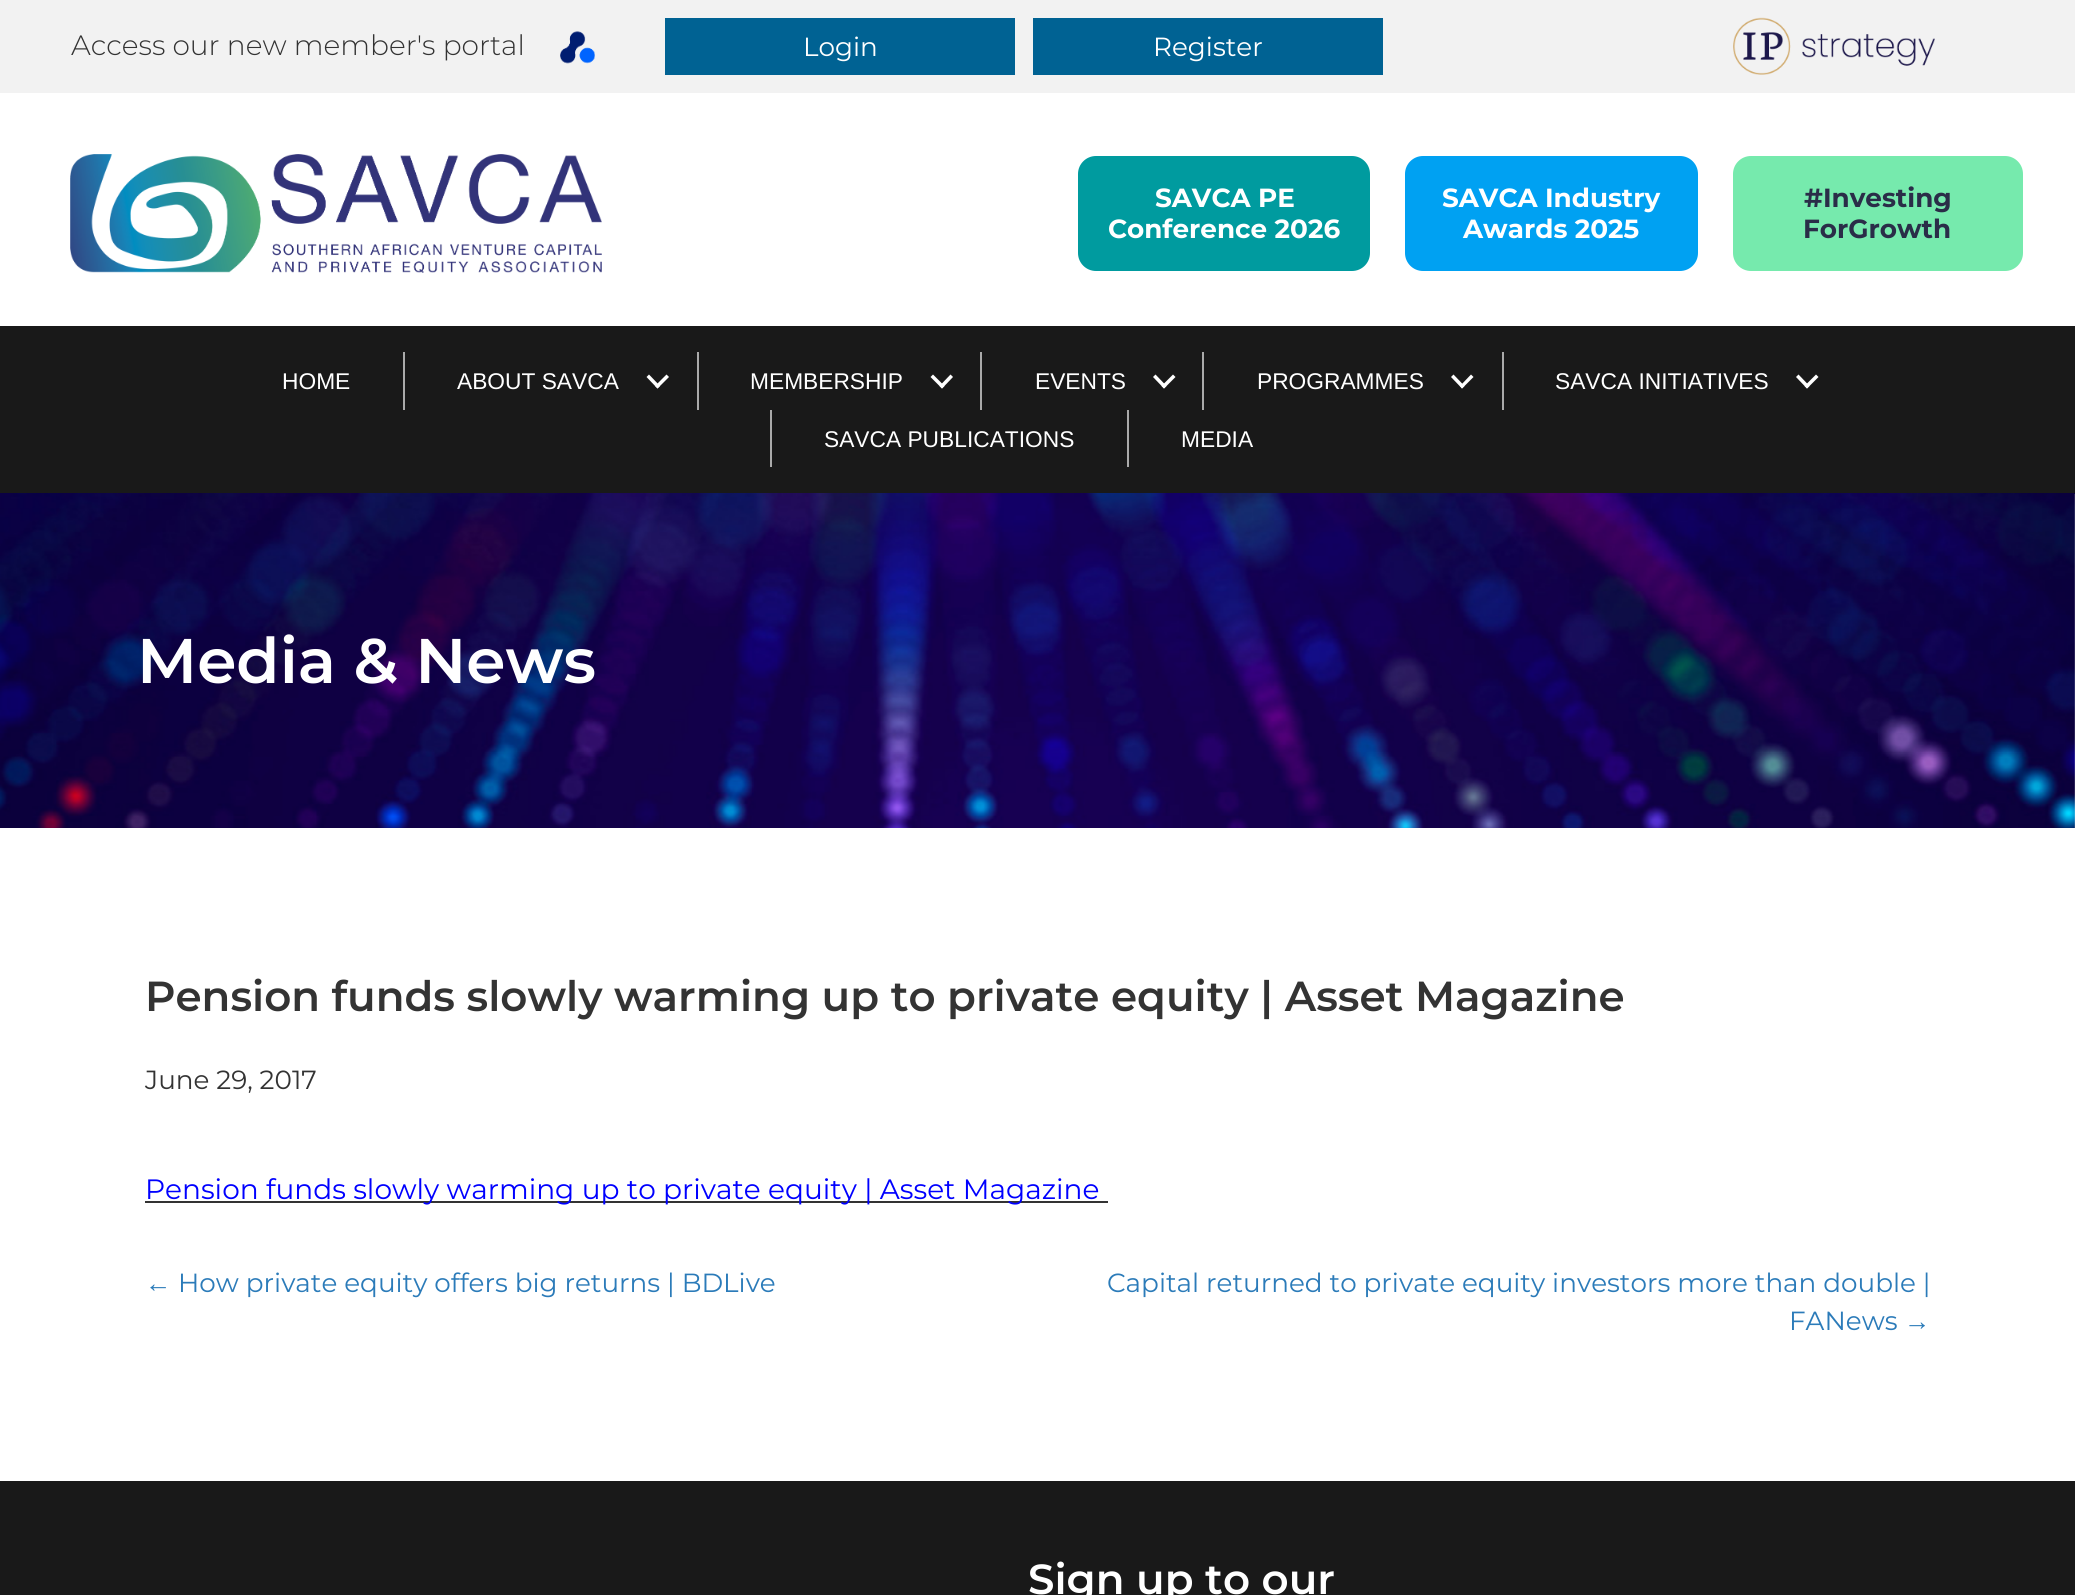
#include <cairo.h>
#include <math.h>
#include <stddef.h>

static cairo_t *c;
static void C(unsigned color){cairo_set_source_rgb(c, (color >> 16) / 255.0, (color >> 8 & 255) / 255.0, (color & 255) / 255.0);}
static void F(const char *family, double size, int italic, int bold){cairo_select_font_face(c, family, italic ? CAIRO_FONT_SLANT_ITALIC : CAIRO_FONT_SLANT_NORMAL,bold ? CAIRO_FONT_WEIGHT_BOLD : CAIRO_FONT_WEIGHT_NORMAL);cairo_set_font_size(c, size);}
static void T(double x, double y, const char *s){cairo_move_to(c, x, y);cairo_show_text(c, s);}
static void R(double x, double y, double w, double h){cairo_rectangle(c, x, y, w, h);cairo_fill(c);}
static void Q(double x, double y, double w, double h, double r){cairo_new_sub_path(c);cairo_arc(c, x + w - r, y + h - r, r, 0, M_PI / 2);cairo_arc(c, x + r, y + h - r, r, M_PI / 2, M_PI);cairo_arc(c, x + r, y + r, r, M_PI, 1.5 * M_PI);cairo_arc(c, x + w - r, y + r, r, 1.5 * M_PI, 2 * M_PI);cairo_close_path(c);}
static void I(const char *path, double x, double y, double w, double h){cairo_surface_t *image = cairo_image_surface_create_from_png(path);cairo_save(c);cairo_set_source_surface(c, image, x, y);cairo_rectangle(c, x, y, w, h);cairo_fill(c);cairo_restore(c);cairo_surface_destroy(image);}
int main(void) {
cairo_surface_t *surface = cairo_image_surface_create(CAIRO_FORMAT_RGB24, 2075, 1595);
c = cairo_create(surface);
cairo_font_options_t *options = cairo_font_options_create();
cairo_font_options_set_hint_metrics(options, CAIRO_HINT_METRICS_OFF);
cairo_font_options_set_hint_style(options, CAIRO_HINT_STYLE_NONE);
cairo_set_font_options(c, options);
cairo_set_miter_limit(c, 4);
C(0xf2f2f2);
cairo_paint(c);
F("Montserrat Light",28,0,0);
C(0x333333);
T(71,55,"Access our new member's portal");
I("1.png",560,31,35,33);
C(0x006293);
R(665,18,350,57);
F("Montserrat",26.25,0,0);
C(0xffffff);
T(803,56,"Login");
C(0x006293);
R(1033,18,350,57);
C(0xffffff);
T(1153,56,"Register");
I("2.png",1733,17,202,58);
R(0,93,2075,233);
I("3.png",70,154,532,119);
C(0x009b9f);
Q(1078,156,292,115,18);
cairo_fill(c);
F("Montserrat",26.25,0,1);
C(0xffffff);
T(1155,207,"SAVCA PE");
T(1108,238,"Conference 2026");
C(0x00a1f2);
Q(1405,156,293,115,18);
cairo_fill(c);
C(0xffffff);
T(1442,207,"SAVCA Industry");
T(1463,238,"Awards 2025");
C(0x76eaad);
Q(1733,156,290,115,18);
cairo_fill(c);
C(0x2a2d48);
T(1804,207,"#Investing");
T(1803,238,"ForGrowth");
C(0x191919);
R(0,326,2075,168);
F("Liberation Sans",22.75,0,0);
C(0xffffff);
T(282,389,"HOME");
C(0xaaaaaa);
R(403,352,2,58);
C(0xffffff);
T(457,389,"ABOUT SAVCA");
cairo_new_path(c);
cairo_move_to(c,666.5,374.5);
cairo_line_to(c,669,377);
cairo_line_to(c,657.5,388.5);
cairo_line_to(c,655,386);
cairo_close_path(c);
cairo_fill(c);
cairo_new_path(c);
cairo_move_to(c,649,374.5);
cairo_line_to(c,660,386);
cairo_line_to(c,657.5,388.5);
cairo_line_to(c,646.5,377);
cairo_close_path(c);
cairo_fill(c);
C(0xaaaaaa);
R(697,352,2,58);
C(0xffffff);
T(750,389,"MEMBERSHIP");
cairo_new_path(c);
cairo_move_to(c,950.5,374.5);
cairo_line_to(c,953,377);
cairo_line_to(c,942,388.5);
cairo_line_to(c,939.5,386);
cairo_close_path(c);
cairo_fill(c);
cairo_new_path(c);
cairo_move_to(c,933,374.5);
cairo_line_to(c,944.5,386);
cairo_line_to(c,942,388.5);
cairo_line_to(c,930.5,377);
cairo_close_path(c);
cairo_fill(c);
C(0xaaaaaa);
R(980,352,2,58);
C(0xffffff);
T(1035,389,"EVENTS");
cairo_new_path(c);
cairo_move_to(c,1173,374.5);
cairo_line_to(c,1175.5,377);
cairo_line_to(c,1164,388.5);
cairo_line_to(c,1161.5,386);
cairo_close_path(c);
cairo_fill(c);
cairo_new_path(c);
cairo_move_to(c,1155.5,374.5);
cairo_line_to(c,1166.5,386);
cairo_line_to(c,1164,388.5);
cairo_line_to(c,1153,377);
cairo_close_path(c);
cairo_fill(c);
C(0xaaaaaa);
R(1202,352,2,58);
C(0xffffff);
T(1257,389,"PROGRAMMES");
cairo_new_path(c);
cairo_move_to(c,1471,374.5);
cairo_line_to(c,1473.5,377);
cairo_line_to(c,1462,388.5);
cairo_line_to(c,1460,386);
cairo_close_path(c);
cairo_fill(c);
cairo_new_path(c);
cairo_move_to(c,1453.5,374.5);
cairo_line_to(c,1464.5,386);
cairo_line_to(c,1462,388.5);
cairo_line_to(c,1451,377);
cairo_close_path(c);
cairo_fill(c);
C(0xaaaaaa);
R(1502,352,2,58);
C(0xffffff);
T(1555,389,"SAVCA INITIATIVES");
cairo_new_path(c);
cairo_move_to(c,1816,374.5);
cairo_line_to(c,1818.5,377);
cairo_line_to(c,1807,388.5);
cairo_line_to(c,1804.5,386);
cairo_close_path(c);
cairo_fill(c);
cairo_new_path(c);
cairo_move_to(c,1798.5,374.5);
cairo_line_to(c,1809.5,386);
cairo_line_to(c,1807,388.5);
cairo_line_to(c,1796,377);
cairo_close_path(c);
cairo_fill(c);
C(0xaaaaaa);
R(770,410,2,57);
C(0xffffff);
T(824,447,"SAVCA PUBLICATIONS");
C(0xaaaaaa);
R(1127,410,2,57);
C(0xffffff);
T(1181,447,"MEDIA");
R(0,494,2075,987);
I("4.png",0,493,2075,335);
F("Montserrat SemiBold",63,0,0);
T(137,683,"Media & News");
F("Montserrat SemiBold",42,0,0);
C(0x333333);
T(145,1011,"Pension funds slowly warming up to private equity | Asset Magazine");
F("Montserrat",26.25,0,0);
T(145,1089,"June 29, 2017");
R(145,1201,963,2);
F("Montserrat",28,0,0);
C(0x0000ff);
T(145,1199,"Pension funds slowly warming up to private equity | Asset Magazine");
F("Liberation Sans",26.25,0,0);
C(0x2b7bb9);
T(145,1292,"←");
F("Montserrat",26.25,0,0);
T(178,1292,"How private equity offers big returns | BDLive");
T(1107,1292,"Capital returned to private equity investors more than double |");
T(1789,1330,"FANews");
F("Liberation Sans",26.25,0,0);
T(1904,1330,"→");
C(0x191919);
R(0,1481,2075,114);
F("Montserrat SemiBold",42,0,0);
C(0xffffff);
T(1028,1594,"Sign up to our");
cairo_surface_write_to_png(surface, "o.png");
cairo_font_options_destroy(options);
cairo_destroy(c);
cairo_surface_destroy(surface);
return 0;
}
